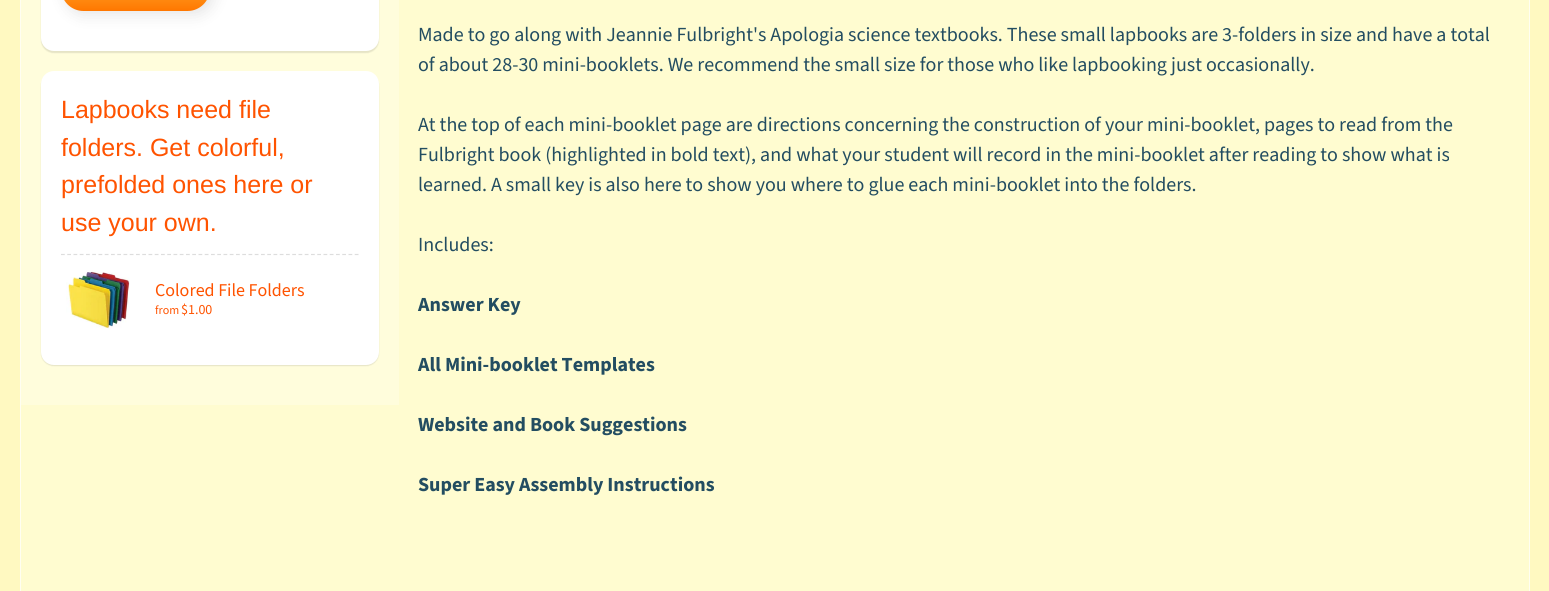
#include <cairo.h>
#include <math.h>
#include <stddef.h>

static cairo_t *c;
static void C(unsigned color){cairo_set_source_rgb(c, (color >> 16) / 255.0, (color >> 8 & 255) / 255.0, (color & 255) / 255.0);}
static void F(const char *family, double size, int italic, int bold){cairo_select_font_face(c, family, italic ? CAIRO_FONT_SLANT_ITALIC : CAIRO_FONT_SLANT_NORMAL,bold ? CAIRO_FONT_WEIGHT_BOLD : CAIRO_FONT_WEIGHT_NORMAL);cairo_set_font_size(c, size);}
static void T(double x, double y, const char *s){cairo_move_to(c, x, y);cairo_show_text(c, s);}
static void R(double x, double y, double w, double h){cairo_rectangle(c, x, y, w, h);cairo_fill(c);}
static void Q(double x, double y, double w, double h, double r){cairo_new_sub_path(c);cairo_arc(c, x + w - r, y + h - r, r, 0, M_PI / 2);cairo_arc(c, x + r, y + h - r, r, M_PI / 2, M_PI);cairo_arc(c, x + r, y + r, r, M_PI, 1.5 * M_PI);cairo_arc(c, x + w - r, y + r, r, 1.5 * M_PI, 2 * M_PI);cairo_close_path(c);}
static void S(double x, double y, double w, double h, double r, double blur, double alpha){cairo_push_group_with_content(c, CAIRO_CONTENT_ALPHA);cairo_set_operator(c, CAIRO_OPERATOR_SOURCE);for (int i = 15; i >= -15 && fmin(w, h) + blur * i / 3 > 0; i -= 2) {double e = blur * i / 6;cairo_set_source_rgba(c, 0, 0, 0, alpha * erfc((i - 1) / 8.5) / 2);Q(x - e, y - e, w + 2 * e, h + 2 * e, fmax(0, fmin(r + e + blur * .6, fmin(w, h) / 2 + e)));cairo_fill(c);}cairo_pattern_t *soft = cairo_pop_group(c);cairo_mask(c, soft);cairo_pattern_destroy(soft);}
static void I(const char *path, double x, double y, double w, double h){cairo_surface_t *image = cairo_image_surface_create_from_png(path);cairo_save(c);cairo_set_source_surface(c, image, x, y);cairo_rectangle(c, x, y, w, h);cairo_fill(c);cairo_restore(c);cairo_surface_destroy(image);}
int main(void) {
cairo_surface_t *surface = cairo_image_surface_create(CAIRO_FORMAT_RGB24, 1549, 591);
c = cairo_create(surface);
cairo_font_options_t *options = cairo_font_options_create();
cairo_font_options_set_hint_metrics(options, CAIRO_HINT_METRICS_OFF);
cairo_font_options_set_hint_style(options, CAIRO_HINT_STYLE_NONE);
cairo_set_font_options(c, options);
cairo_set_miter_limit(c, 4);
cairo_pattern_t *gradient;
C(0xfff9c1);
cairo_paint(c);
C(0xfffcd0);
cairo_rectangle(c,20.5,-.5,1509,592);
cairo_fill_preserve(c);
C(0xfffef1);
cairo_set_line_width(c,1);
cairo_stroke(c);
C(0xfffddc);
R(21,0,378,405);
C(0x000000);
S(41,-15,338,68,13,.5,.1);
C(0xffffff);
Q(41,-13,338,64,13);
cairo_fill(c);
C(0x000000);
S(65,-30,149,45,22.5,7.5,.1);
gradient = cairo_pattern_create_linear(136,-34,136,11);
cairo_pattern_add_color_stop_rgba(gradient,0,1,0.741,0.243,1);
cairo_pattern_add_color_stop_rgba(gradient,1,1,0.467,0,1);
cairo_set_source(c,gradient);
cairo_pattern_destroy(gradient);
Q(61,-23,149,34,22.5);
cairo_fill(c);
C(0x000000);
S(41,73,338,293,13,.5,.1);
C(0xffffff);
Q(41,71,338,294,13);
cairo_fill(c);
F("Liberation Sans",25,0,0);
C(0xff5300);
T(61,118,"Lapbooks need file");
T(61,156,"folders. Get colorful,");
T(61,193,"prefolded ones here or");
T(61,231,"use your own.");
cairo_new_path(c);
cairo_move_to(c,61,254.5);
cairo_line_to(c,359,254.5);
C(0xdddddd);
cairo_set_line_width(c,1.2);
cairo_set_dash(c,(double[]){3.75,2.5},2,0);
cairo_stroke(c);
I("1.png",66,270,64,59);
F("Source Sans Pro",18,0,0);
C(0xff5300);
T(155,296,"Colored File Folders");
F("Source Sans Pro",12,0,0);
T(155,314,"from");
F("Source Sans Pro",14,0,0);
T(181,314,"$1.00");
F("Source Sans Pro",20,0,0);
C(0x234d61);
T(418,41,"Made to go along with Jeannie Fulbright's Apologia science textbooks. These small lapbooks are 3-folders in size and have a total");
T(418,71,"of about 28-30 mini-booklets. We recommend the small size for those who like lapbooking just occasionally.");
T(418,131,"At the top of each mini-booklet page are directions concerning the construction of your mini-booklet, pages to read from the");
T(418,161,"Fulbright book (highlighted in bold text), and what your student will record in the mini-booklet after reading to show what is");
T(418,191,"learned. A small key is also here to show you where to glue each mini-booklet into the folders.");
T(418,251,"Includes:");
F("Source Sans Pro",20,0,1);
T(418,311,"Answer Key");
T(418,371,"All Mini-booklet Templates");
T(418,431,"Website and Book Suggestions");
T(418,491,"Super Easy Assembly Instructions");
cairo_surface_write_to_png(surface, "o.png");
cairo_font_options_destroy(options);
cairo_destroy(c);
cairo_surface_destroy(surface);
return 0;
}
